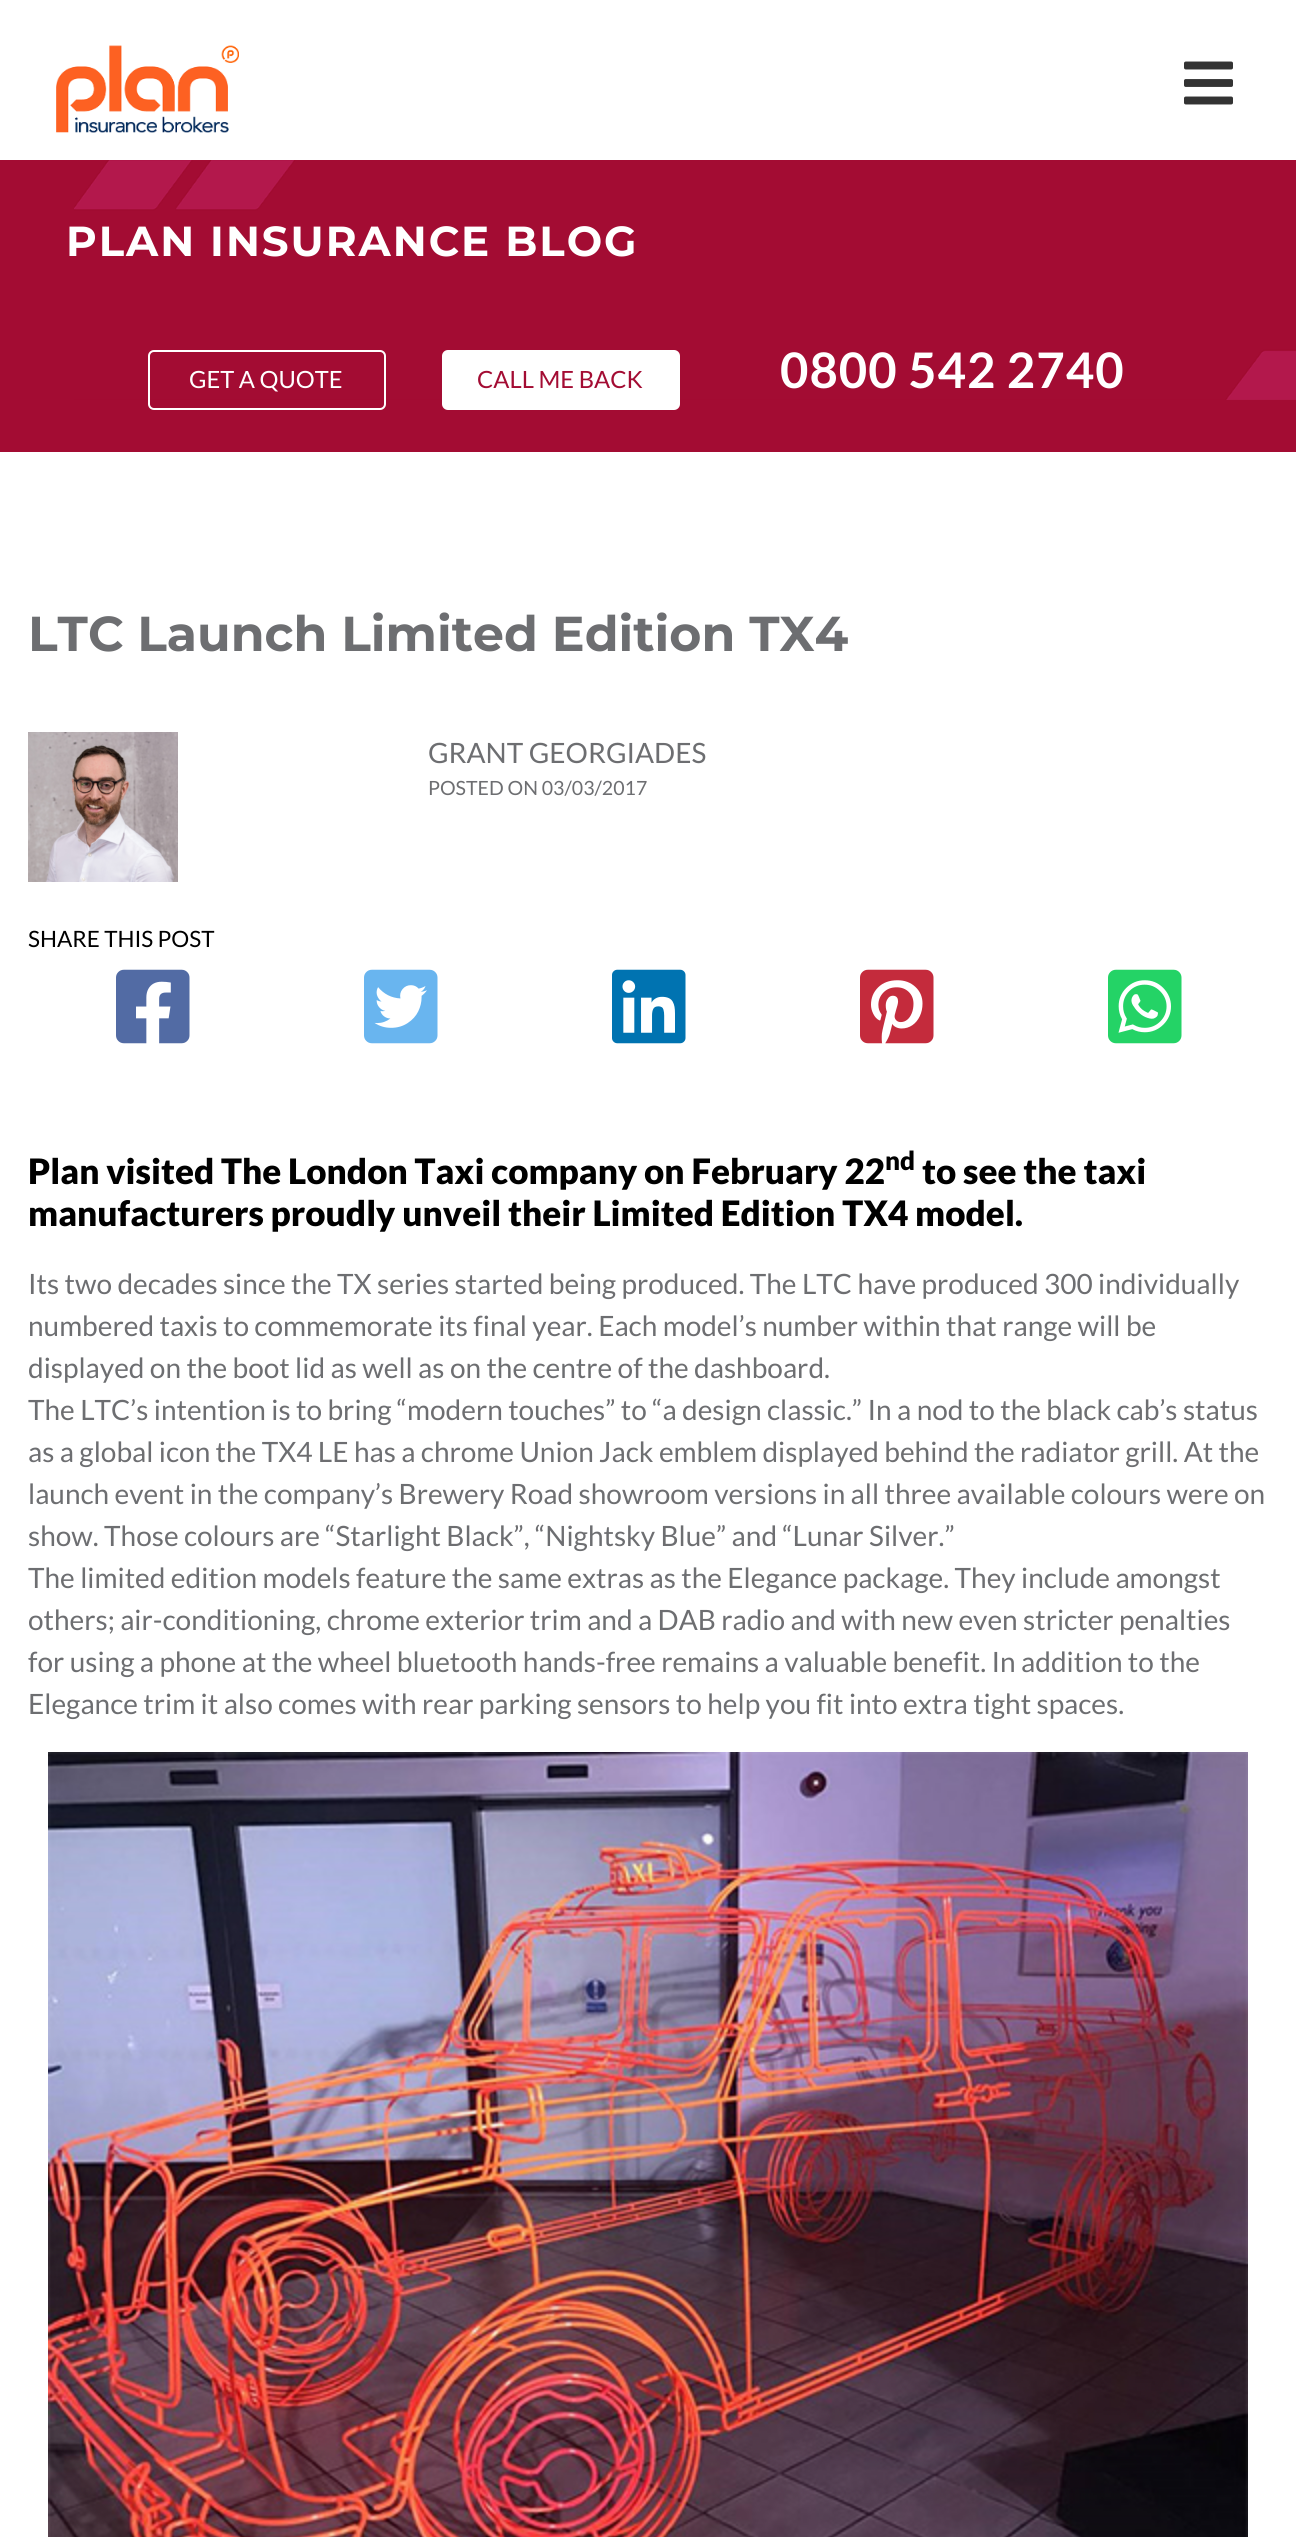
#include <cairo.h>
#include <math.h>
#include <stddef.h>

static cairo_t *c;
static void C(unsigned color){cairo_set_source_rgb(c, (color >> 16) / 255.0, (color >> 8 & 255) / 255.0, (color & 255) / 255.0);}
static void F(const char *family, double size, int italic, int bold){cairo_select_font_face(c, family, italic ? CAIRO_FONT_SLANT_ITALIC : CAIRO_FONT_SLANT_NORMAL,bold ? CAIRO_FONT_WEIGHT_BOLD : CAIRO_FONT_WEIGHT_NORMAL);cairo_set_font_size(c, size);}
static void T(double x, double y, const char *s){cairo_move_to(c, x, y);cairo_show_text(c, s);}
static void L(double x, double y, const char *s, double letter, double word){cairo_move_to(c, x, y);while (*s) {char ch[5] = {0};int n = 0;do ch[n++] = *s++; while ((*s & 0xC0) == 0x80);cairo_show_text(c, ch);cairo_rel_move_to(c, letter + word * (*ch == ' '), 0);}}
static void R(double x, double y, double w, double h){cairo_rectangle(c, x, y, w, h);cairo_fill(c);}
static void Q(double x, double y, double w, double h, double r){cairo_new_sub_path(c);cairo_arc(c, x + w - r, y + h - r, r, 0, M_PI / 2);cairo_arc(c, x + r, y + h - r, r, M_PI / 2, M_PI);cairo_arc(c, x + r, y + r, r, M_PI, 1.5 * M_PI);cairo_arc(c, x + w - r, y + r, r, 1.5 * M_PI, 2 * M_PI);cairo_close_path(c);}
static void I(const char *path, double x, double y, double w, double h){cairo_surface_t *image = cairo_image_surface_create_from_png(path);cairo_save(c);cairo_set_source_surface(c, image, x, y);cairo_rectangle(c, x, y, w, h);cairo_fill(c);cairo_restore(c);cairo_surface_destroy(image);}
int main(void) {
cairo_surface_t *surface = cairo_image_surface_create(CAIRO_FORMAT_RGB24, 1296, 2537);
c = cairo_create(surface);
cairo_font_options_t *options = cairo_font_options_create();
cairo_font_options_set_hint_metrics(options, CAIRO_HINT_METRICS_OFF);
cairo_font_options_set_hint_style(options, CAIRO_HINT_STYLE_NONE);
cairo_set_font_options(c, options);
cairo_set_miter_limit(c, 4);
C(0xffffff);
cairo_paint(c);
I("1.png",56,45,183,88);
I("2.png",1184,61,49,44);
C(0xa30c33);
R(0,160,1296,292);
I("3.png",74,160,1222,240);
F("Montserrat",42,0,1);
C(0xffffff);
L(66,256,"PLAN INSURANCE BLOG",2,0);
Q(149,351,236,58,5);
cairo_stroke(c);
F("Lato",23.75,0,0);
T(189,388,"GET A QUOTE");
Q(443,351,236,58,5);
cairo_fill_preserve(c);
cairo_stroke(c);
C(0xa30c33);
T(477,388,"CALL ME BACK");
F("Lato",49,0,1);
C(0xffffff);
L(780,388,"0800 542 2740",1,0);
F("Montserrat",49,0,1);
C(0x6d6e71);
T(28,651,"LTC Launch Limited Edition TX4");
I("4.png",28,732,150,150);
F("Lato",28,0,0);
T(428,763,"GRANT GEORGIADES");
F("Lato",19.6,0,0);
T(428,795,"POSTED ON 03/03/2017");
F("Lato",22.5,0,0);
C(0x000000);
T(28,947,"SHARE THIS POST");
I("5.png",116,969,74,75);
I("6.png",364,969,74,75);
I("7.png",612,969,74,75);
I("8.png",860,969,74,75);
I("9.png",1108,969,74,75);
F("Lato Black",35,0,0);
T(28,1184,"Plan visited The London Taxi company on February 22");
F("Lato Black",26,0,0);
T(885,1170,"nd");
F("Lato Black",35,0,0);
T(922,1184,"to see the taxi");
T(28,1226,"manufacturers proudly unveil their Limited Edition TX4 model.");
F("Lato",28,0,0);
C(0x6d6e71);
T(28,1294,"Its two decades since the TX series started being produced. The LTC have produced 300 individually");
T(28,1336,"numbered taxis to commemorate its final year. Each model’s number within that range will be");
T(28,1378,"displayed on the boot lid as well as on the centre of the dashboard.");
T(28,1420,"The LTC’s intention is to bring “modern touches” to “a design classic.” In a nod to the black cab’s status");
T(28,1462,"as a global icon the TX4 LE has a chrome Union Jack emblem displayed behind the radiator grill. At the");
T(28,1504,"launch event in the company’s Brewery Road showroom versions in all three available colours were on");
T(28,1546,"show. Those colours are “Starlight Black”, “Nightsky Blue” and “Lunar Silver.”");
T(28,1588,"The limited edition models feature the same extras as the Elegance package. They include amongst");
T(28,1630,"others; air-conditioning, chrome exterior trim and a DAB radio and with new even stricter penalties");
T(28,1672,"for using a phone at the wheel bluetooth hands-free remains a valuable benefit. In addition to the");
T(28,1714,"Elegance trim it also comes with rear parking sensors to help you fit into extra tight spaces.");
I("10.png",48,1752,1200,785);
cairo_surface_write_to_png(surface, "o.png");
cairo_font_options_destroy(options);
cairo_destroy(c);
cairo_surface_destroy(surface);
return 0;
}
